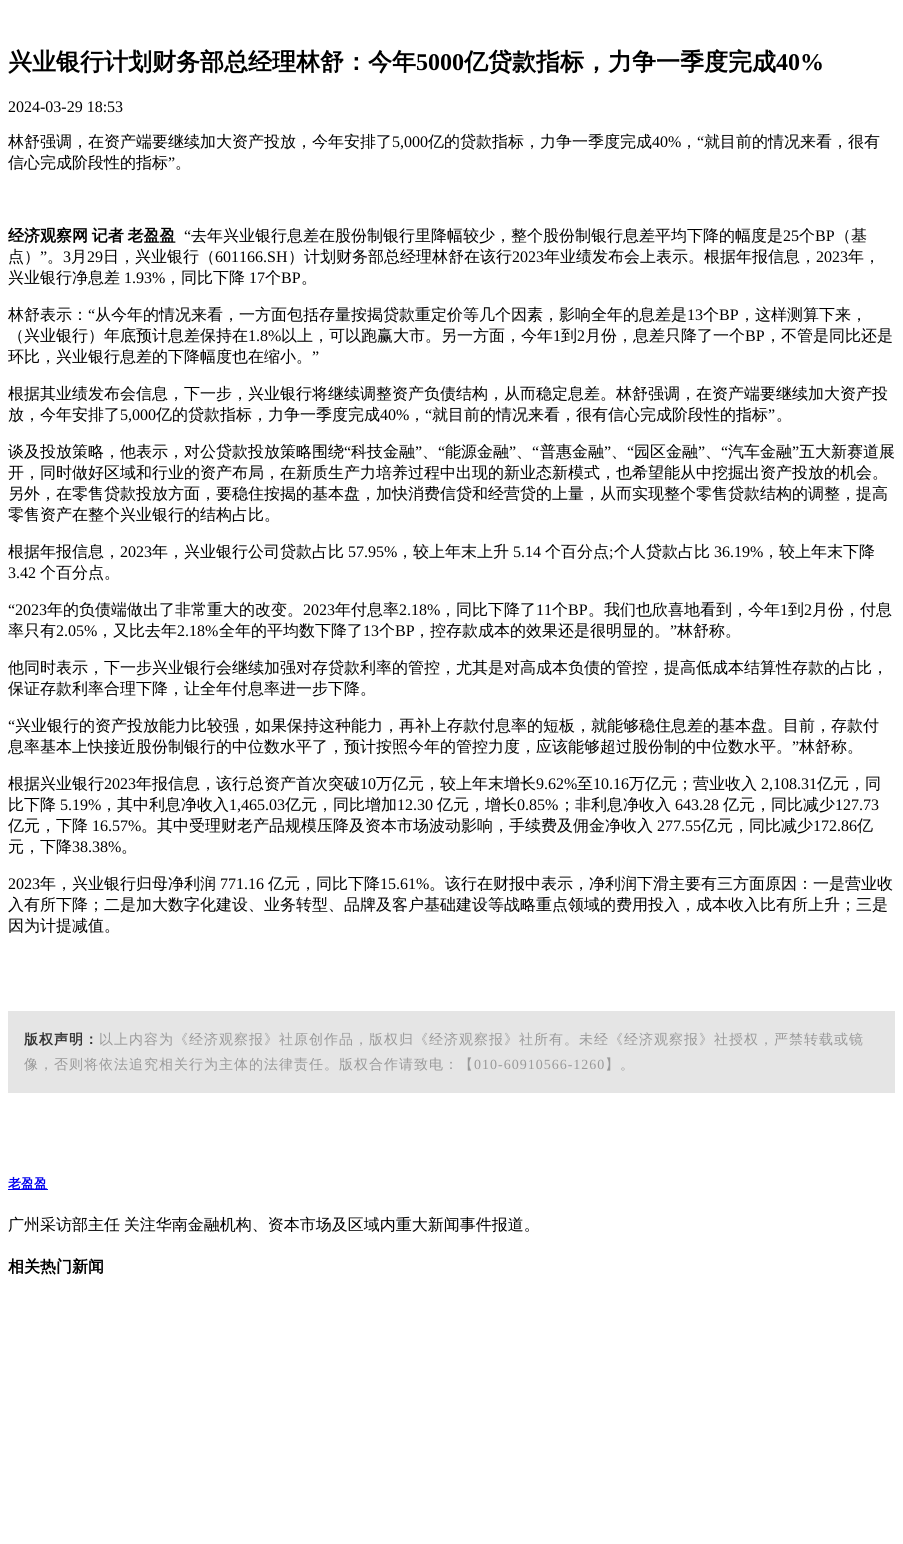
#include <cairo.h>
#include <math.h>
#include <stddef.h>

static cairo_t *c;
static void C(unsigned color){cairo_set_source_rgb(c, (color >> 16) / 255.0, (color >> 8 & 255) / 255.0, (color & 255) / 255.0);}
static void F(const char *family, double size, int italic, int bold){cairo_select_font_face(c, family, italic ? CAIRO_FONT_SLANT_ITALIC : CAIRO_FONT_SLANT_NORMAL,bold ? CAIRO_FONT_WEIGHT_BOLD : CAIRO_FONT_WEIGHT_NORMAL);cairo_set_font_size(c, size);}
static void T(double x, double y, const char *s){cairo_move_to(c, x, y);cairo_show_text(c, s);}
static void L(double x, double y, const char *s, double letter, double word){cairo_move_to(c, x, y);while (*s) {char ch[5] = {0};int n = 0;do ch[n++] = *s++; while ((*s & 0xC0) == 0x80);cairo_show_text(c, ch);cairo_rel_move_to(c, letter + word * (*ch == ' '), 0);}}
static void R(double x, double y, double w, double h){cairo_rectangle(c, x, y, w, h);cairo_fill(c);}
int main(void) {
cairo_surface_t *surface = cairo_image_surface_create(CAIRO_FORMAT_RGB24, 903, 1544);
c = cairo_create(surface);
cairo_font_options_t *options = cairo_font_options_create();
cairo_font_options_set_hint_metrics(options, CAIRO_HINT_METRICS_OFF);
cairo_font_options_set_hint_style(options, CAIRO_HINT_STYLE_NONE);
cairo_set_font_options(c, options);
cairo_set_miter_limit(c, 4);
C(0xffffff);
cairo_paint(c);
F("WenQuanYi Zen Hei",24,0,1);
C(0x000000);
T(8,70,"兴业银行计划财务部总经理林舒：今年");
F("Liberation Serif",24,0,1);
T(416,70,"5000");
F("WenQuanYi Zen Hei",24,0,1);
T(464,70,"亿贷款指标，力争一季度完成");
F("Liberation Serif",24,0,1);
T(776,70,"40%");
F("Liberation Serif",16,0,0);
T(8,112,"2024-03-29 18:53");
F("WenQuanYi Zen Hei Medium",16,0,0);
T(8,147,"林舒强调，在资产端要继续加大资产投放，今年安排了");
F("Liberation Serif",16,0,0);
T(392,147,"5,000");
F("WenQuanYi Zen Hei Medium",16,0,0);
T(428,147,"亿的贷款指标，力争一季度完成");
F("Liberation Serif",16,0,0);
T(652,147,"40%");
T(697,147,"“");
F("WenQuanYi Zen Hei Medium",16,0,0);
T(704,147,"就目前的情况来看，很有");
T(681,147,"，");
T(8,168,"信心完成阶段性的指标");
F("Liberation Serif",16,0,0);
T(168,168,"”");
F("WenQuanYi Zen Hei Medium",16,0,0);
T(175,168,"。");
F("WenQuanYi Zen Hei",16,0,1);
L(8,241,"经济观察网 记者 老盈盈",0,-1);
F("Liberation Serif",16,0,0);
T(184,241,"“");
F("WenQuanYi Zen Hei Medium",16,0,0);
T(191,241,"去年兴业银行息差在股份制银行里降幅较少，整个股份制银行息差平均下降的幅度是");
F("Liberation Serif",16,0,0);
T(783,241,"25");
F("WenQuanYi Zen Hei Medium",16,0,0);
T(799,241,"个");
F("Liberation Serif",16,0,0);
T(815,241,"BP");
F("WenQuanYi Zen Hei Medium",16,0,0);
T(835,241,"（基");
T(8,262,"点）");
F("Liberation Serif",16,0,0);
T(40,262,"”");
F("WenQuanYi Zen Hei Medium",16,0,0);
T(47,262,"。");
F("Liberation Serif",16,0,0);
T(63,262,"3");
F("WenQuanYi Zen Hei Medium",16,0,0);
T(71,262,"月");
F("Liberation Serif",16,0,0);
T(87,262,"29");
F("WenQuanYi Zen Hei Medium",16,0,0);
T(103,262,"日，兴业银行（");
F("Liberation Serif",16,0,0);
T(215,262,"601166.SH");
F("WenQuanYi Zen Hei Medium",16,0,0);
T(288,262,"）计划财务部总经理林舒在该行");
F("Liberation Serif",16,0,0);
T(512,262,"2023");
F("WenQuanYi Zen Hei Medium",16,0,0);
T(544,262,"年业绩发布会上表示。根据年报信息，");
F("Liberation Serif",16,0,0);
T(816,262,"2023");
F("WenQuanYi Zen Hei Medium",16,0,0);
T(848,262,"年，");
T(8,283,"兴业银行净息差");
F("Liberation Serif",16,0,0);
T(124,283,"1.93%");
F("WenQuanYi Zen Hei Medium",16,0,0);
T(165,283,"，同比下降");
F("Liberation Serif",16,0,0);
T(249,283,"17");
F("WenQuanYi Zen Hei Medium",16,0,0);
T(265,283,"个");
F("Liberation Serif",16,0,0);
T(281,283,"BP");
F("WenQuanYi Zen Hei Medium",16,0,0);
T(301,283,"。");
T(8,320,"林舒表示：");
F("Liberation Serif",16,0,0);
T(88,320,"“");
F("WenQuanYi Zen Hei Medium",16,0,0);
T(95,320,"从今年的情况来看，一方面包括存量按揭贷款重定价等几个因素，影响全年的息差是");
F("Liberation Serif",16,0,0);
T(687,320,"13");
F("WenQuanYi Zen Hei Medium",16,0,0);
T(703,320,"个");
F("Liberation Serif",16,0,0);
T(719,320,"BP");
F("WenQuanYi Zen Hei Medium",16,0,0);
T(739,320,"，这样测算下来，");
T(8,341,"（兴业银行）年底预计息差保持在");
F("Liberation Serif",16,0,0);
T(248,341,"1.8%");
F("WenQuanYi Zen Hei Medium",16,0,0);
T(281,341,"以上，可以跑赢大市。另一方面，今年");
F("Liberation Serif",16,0,0);
T(553,341,"1");
F("WenQuanYi Zen Hei Medium",16,0,0);
T(561,341,"到");
F("Liberation Serif",16,0,0);
T(577,341,"2");
F("WenQuanYi Zen Hei Medium",16,0,0);
T(585,341,"月份，息差只降了一个");
F("Liberation Serif",16,0,0);
T(745,341,"BP");
F("WenQuanYi Zen Hei Medium",16,0,0);
T(765,341,"，不管是同比还是");
T(8,362,"环比，兴业银行息差的下降幅度也在缩小。");
F("Liberation Serif",16,0,0);
T(312,362,"”");
F("WenQuanYi Zen Hei Medium",16,0,0);
T(8,399,"根据其业绩发布会信息，下一步，兴业银行将继续调整资产负债结构，从而稳定息差。林舒强调，在资产端要继续加大资产投");
T(8,420,"放，今年安排了");
F("Liberation Serif",16,0,0);
T(120,420,"5,000");
F("WenQuanYi Zen Hei Medium",16,0,0);
T(156,420,"亿的贷款指标，力争一季度完成");
F("Liberation Serif",16,0,0);
T(380,420,"40%");
T(425,420,"“");
F("WenQuanYi Zen Hei Medium",16,0,0);
T(432,420,"就目前的情况来看，很有信心完成阶段性的指标");
F("Liberation Serif",16,0,0);
T(768,420,"”");
F("WenQuanYi Zen Hei Medium",16,0,0);
T(409,420,"，");
T(776,420,"。");
T(8,457,"谈及投放策略，他表示，对公贷款投放策略围绕");
F("Liberation Serif",16,0,0);
T(344,457,"“");
F("WenQuanYi Zen Hei Medium",16,0,0);
T(351,457,"科技金融");
F("Liberation Serif",16,0,0);
T(415,457,"”");
T(438,457,"“");
F("WenQuanYi Zen Hei Medium",16,0,0);
T(445,457,"能源金融");
F("Liberation Serif",16,0,0);
T(509,457,"”");
T(532,457,"“");
F("WenQuanYi Zen Hei Medium",16,0,0);
T(540,457,"普惠金融");
F("Liberation Serif",16,0,0);
T(604,457,"”");
T(627,457,"“");
F("WenQuanYi Zen Hei Medium",16,0,0);
T(634,457,"园区金融");
F("Liberation Serif",16,0,0);
T(698,457,"”");
T(721,457,"“");
F("WenQuanYi Zen Hei Medium",16,0,0);
T(728,457,"汽车金融");
F("Liberation Serif",16,0,0);
T(792,457,"”");
F("WenQuanYi Zen Hei Medium",16,0,0);
T(799,457,"五大新赛道展");
T(422,457,"、");
T(516,457,"、");
T(611,457,"、");
T(705,457,"、");
T(8,478,"开，同时做好区域和行业的资产布局，在新质生产力培养过程中出现的新业态新模式，也希望能从中挖掘出资产投放的机会。");
T(8,499,"另外，在零售贷款投放方面，要稳住按揭的基本盘，加快消费信贷和经营贷的上量，从而实现整个零售贷款结构的调整，提高");
T(8,520,"零售资产在整个兴业银行的结构占比。");
T(8,557,"根据年报信息，");
F("Liberation Serif",16,0,0);
T(120,557,"2023");
F("WenQuanYi Zen Hei Medium",16,0,0);
T(152,557,"年，兴业银行公司贷款占比");
F("Liberation Serif",16,0,0);
T(348,557,"57.95%");
F("WenQuanYi Zen Hei Medium",16,0,0);
T(397,557,"，较上年末上升");
F("Liberation Serif",16,0,0);
T(513,557,"5.14");
F("WenQuanYi Zen Hei Medium",16,0,0);
T(545,557,"个百分点");
F("Liberation Serif",16,0,0);
T(609,557,";");
F("WenQuanYi Zen Hei Medium",16,0,0);
T(614,557,"个人贷款占比");
F("Liberation Serif",16,0,0);
T(714,557,"36.19%");
F("WenQuanYi Zen Hei Medium",16,0,0);
T(763,557,"，较上年末下降");
F("Liberation Serif",16,0,0);
T(8,578,"3.42");
F("WenQuanYi Zen Hei Medium",16,0,0);
T(40,578,"个百分点。");
F("Liberation Serif",16,0,0);
T(8,615,"“2023");
F("WenQuanYi Zen Hei Medium",16,0,0);
T(47,615,"年的负债端做出了非常重大的改变。");
F("Liberation Serif",16,0,0);
T(303,615,"2023");
F("WenQuanYi Zen Hei Medium",16,0,0);
T(335,615,"年付息率");
F("Liberation Serif",16,0,0);
T(399,615,"2.18%");
F("WenQuanYi Zen Hei Medium",16,0,0);
T(440,615,"，同比下降了");
F("Liberation Serif",16,0,0);
T(536,615,"11");
F("WenQuanYi Zen Hei Medium",16,0,0);
T(552,615,"个");
F("Liberation Serif",16,0,0);
T(568,615,"BP");
F("WenQuanYi Zen Hei Medium",16,0,0);
T(588,615,"。我们也欣喜地看到，今年");
F("Liberation Serif",16,0,0);
T(780,615,"1");
F("WenQuanYi Zen Hei Medium",16,0,0);
T(788,615,"到");
F("Liberation Serif",16,0,0);
T(804,615,"2");
F("WenQuanYi Zen Hei Medium",16,0,0);
T(812,615,"月份，付息");
T(8,636,"率只有");
F("Liberation Serif",16,0,0);
T(56,636,"2.05%");
F("WenQuanYi Zen Hei Medium",16,0,0);
T(97,636,"，又比去年");
F("Liberation Serif",16,0,0);
T(177,636,"2.18%");
F("WenQuanYi Zen Hei Medium",16,0,0);
T(219,636,"全年的平均数下降了");
F("Liberation Serif",16,0,0);
T(363,636,"13");
F("WenQuanYi Zen Hei Medium",16,0,0);
T(379,636,"个");
F("Liberation Serif",16,0,0);
T(395,636,"BP");
F("WenQuanYi Zen Hei Medium",16,0,0);
T(414,636,"，控存款成本的效果还是很明显的。");
F("Liberation Serif",16,0,0);
T(670,636,"”");
F("WenQuanYi Zen Hei Medium",16,0,0);
T(677,636,"林舒称。");
T(8,673,"他同时表示，下一步兴业银行会继续加强对存贷款利率的管控，尤其是对高成本负债的管控，提高低成本结算性存款的占比，");
T(8,694,"保证存款利率合理下降，让全年付息率进一步下降。");
F("Liberation Serif",16,0,0);
T(8,731,"“");
F("WenQuanYi Zen Hei Medium",16,0,0);
T(15,731,"兴业银行的资产投放能力比较强，如果保持这种能力，再补上存款付息率的短板，就能够稳住息差的基本盘。目前，存款付");
T(8,752,"息率基本上快接近股份制银行的中位数水平了，预计按照今年的管控力度，应该能够超过股份制的中位数水平。");
F("Liberation Serif",16,0,0);
T(792,752,"”");
F("WenQuanYi Zen Hei Medium",16,0,0);
T(799,752,"林舒称。");
T(8,789,"根据兴业银行");
F("Liberation Serif",16,0,0);
T(104,789,"2023");
F("WenQuanYi Zen Hei Medium",16,0,0);
T(136,789,"年报信息，该行总资产首次突破");
F("Liberation Serif",16,0,0);
T(360,789,"10");
F("WenQuanYi Zen Hei Medium",16,0,0);
T(376,789,"万亿元，较上年末增长");
F("Liberation Serif",16,0,0);
T(536,789,"9.62%");
F("WenQuanYi Zen Hei Medium",16,0,0);
T(577,789,"至");
F("Liberation Serif",16,0,0);
T(593,789,"10.16");
F("WenQuanYi Zen Hei Medium",16,0,0);
T(629,789,"万亿元；营业收入");
F("Liberation Serif",16,0,0);
T(761,789,"2,108.31");
F("WenQuanYi Zen Hei Medium",16,0,0);
T(817,789,"亿元，同");
T(8,810,"比下降");
F("Liberation Serif",16,0,0);
T(60,810,"5.19%");
F("WenQuanYi Zen Hei Medium",16,0,0);
T(101,810,"，其中利息净收入");
F("Liberation Serif",16,0,0);
T(229,810,"1,465.03");
F("WenQuanYi Zen Hei Medium",16,0,0);
T(285,810,"亿元，同比增加");
F("Liberation Serif",16,0,0);
T(397,810,"12.30");
F("WenQuanYi Zen Hei Medium",16,0,0);
T(437,810,"亿元，增长");
F("Liberation Serif",16,0,0);
T(517,810,"0.85%");
F("WenQuanYi Zen Hei Medium",16,0,0);
T(559,810,"；非利息净收入");
F("Liberation Serif",16,0,0);
T(675,810,"643.28");
F("WenQuanYi Zen Hei Medium",16,0,0);
T(723,810,"亿元，同比减少");
F("Liberation Serif",16,0,0);
T(835,810,"127.73");
F("WenQuanYi Zen Hei Medium",16,0,0);
T(8,831,"亿元，下降");
F("Liberation Serif",16,0,0);
T(92,831,"16.57%");
F("WenQuanYi Zen Hei Medium",16,0,0);
T(141,831,"。其中受理财老产品规模压降及资本市场波动影响，手续费及佣金净收入");
F("Liberation Serif",16,0,0);
T(657,831,"277.55");
F("WenQuanYi Zen Hei Medium",16,0,0);
T(701,831,"亿元，同比减少");
F("Liberation Serif",16,0,0);
T(813,831,"172.86");
F("WenQuanYi Zen Hei Medium",16,0,0);
T(857,831,"亿");
T(8,852,"元，下降");
F("Liberation Serif",16,0,0);
T(72,852,"38.38%");
F("WenQuanYi Zen Hei Medium",16,0,0);
T(121,852,"。");
F("Liberation Serif",16,0,0);
T(8,889,"2023");
F("WenQuanYi Zen Hei Medium",16,0,0);
T(40,889,"年，兴业银行归母净利润");
F("Liberation Serif",16,0,0);
T(220,889,"771.16");
F("WenQuanYi Zen Hei Medium",16,0,0);
T(268,889,"亿元，同比下降");
F("Liberation Serif",16,0,0);
T(380,889,"15.61%");
F("WenQuanYi Zen Hei Medium",16,0,0);
T(429,889,"。该行在财报中表示，净利润下滑主要有三方面原因：一是营业收");
T(8,910,"入有所下降；二是加大数字化建设、业务转型、品牌及客户基础建设等战略重点领域的费用投入，成本收入比有所上升；三是");
T(8,931,"因为计提减值。");
C(0xe5e5e5);
R(8,1011,887,82);
F("WenQuanYi Zen Hei",14,0,1);
C(0x333333);
L(24,1044,"版权声明：",1,0);
F("WenQuanYi Zen Hei Medium",14,0,0);
C(0x999999);
L(99,1044,"以上内容为《经济观察报》社原创作品，版权归《经济观察报》社所有。未经《经济观察报》社授权，严禁转载或镜",1,0);
L(24,1069,"像，否则将依法追究相关行为主体的法律责任。版权合作请致电：【",1,0);
F("Liberation Serif",14,0,0);
L(474,1069,"010-60910566-1260",1,0);
F("WenQuanYi Zen Hei Medium",14,0,0);
L(605,1069,"】。",1,0);
C(0x0000ee);
R(8,1189,40,1);
F("WenQuanYi Zen Hei",13,0,1);
T(8,1188,"老盈盈");
F("WenQuanYi Zen Hei Medium",16,0,0);
C(0x000000);
L(8,1230,"广州采访部主任 关注华南金融机构、资本市场及区域内重大新闻事件报道。",0,-1);
F("WenQuanYi Zen Hei",16,0,1);
T(8,1272,"相关热门新闻");
cairo_surface_write_to_png(surface, "o.png");
cairo_font_options_destroy(options);
cairo_destroy(c);
cairo_surface_destroy(surface);
return 0;
}
